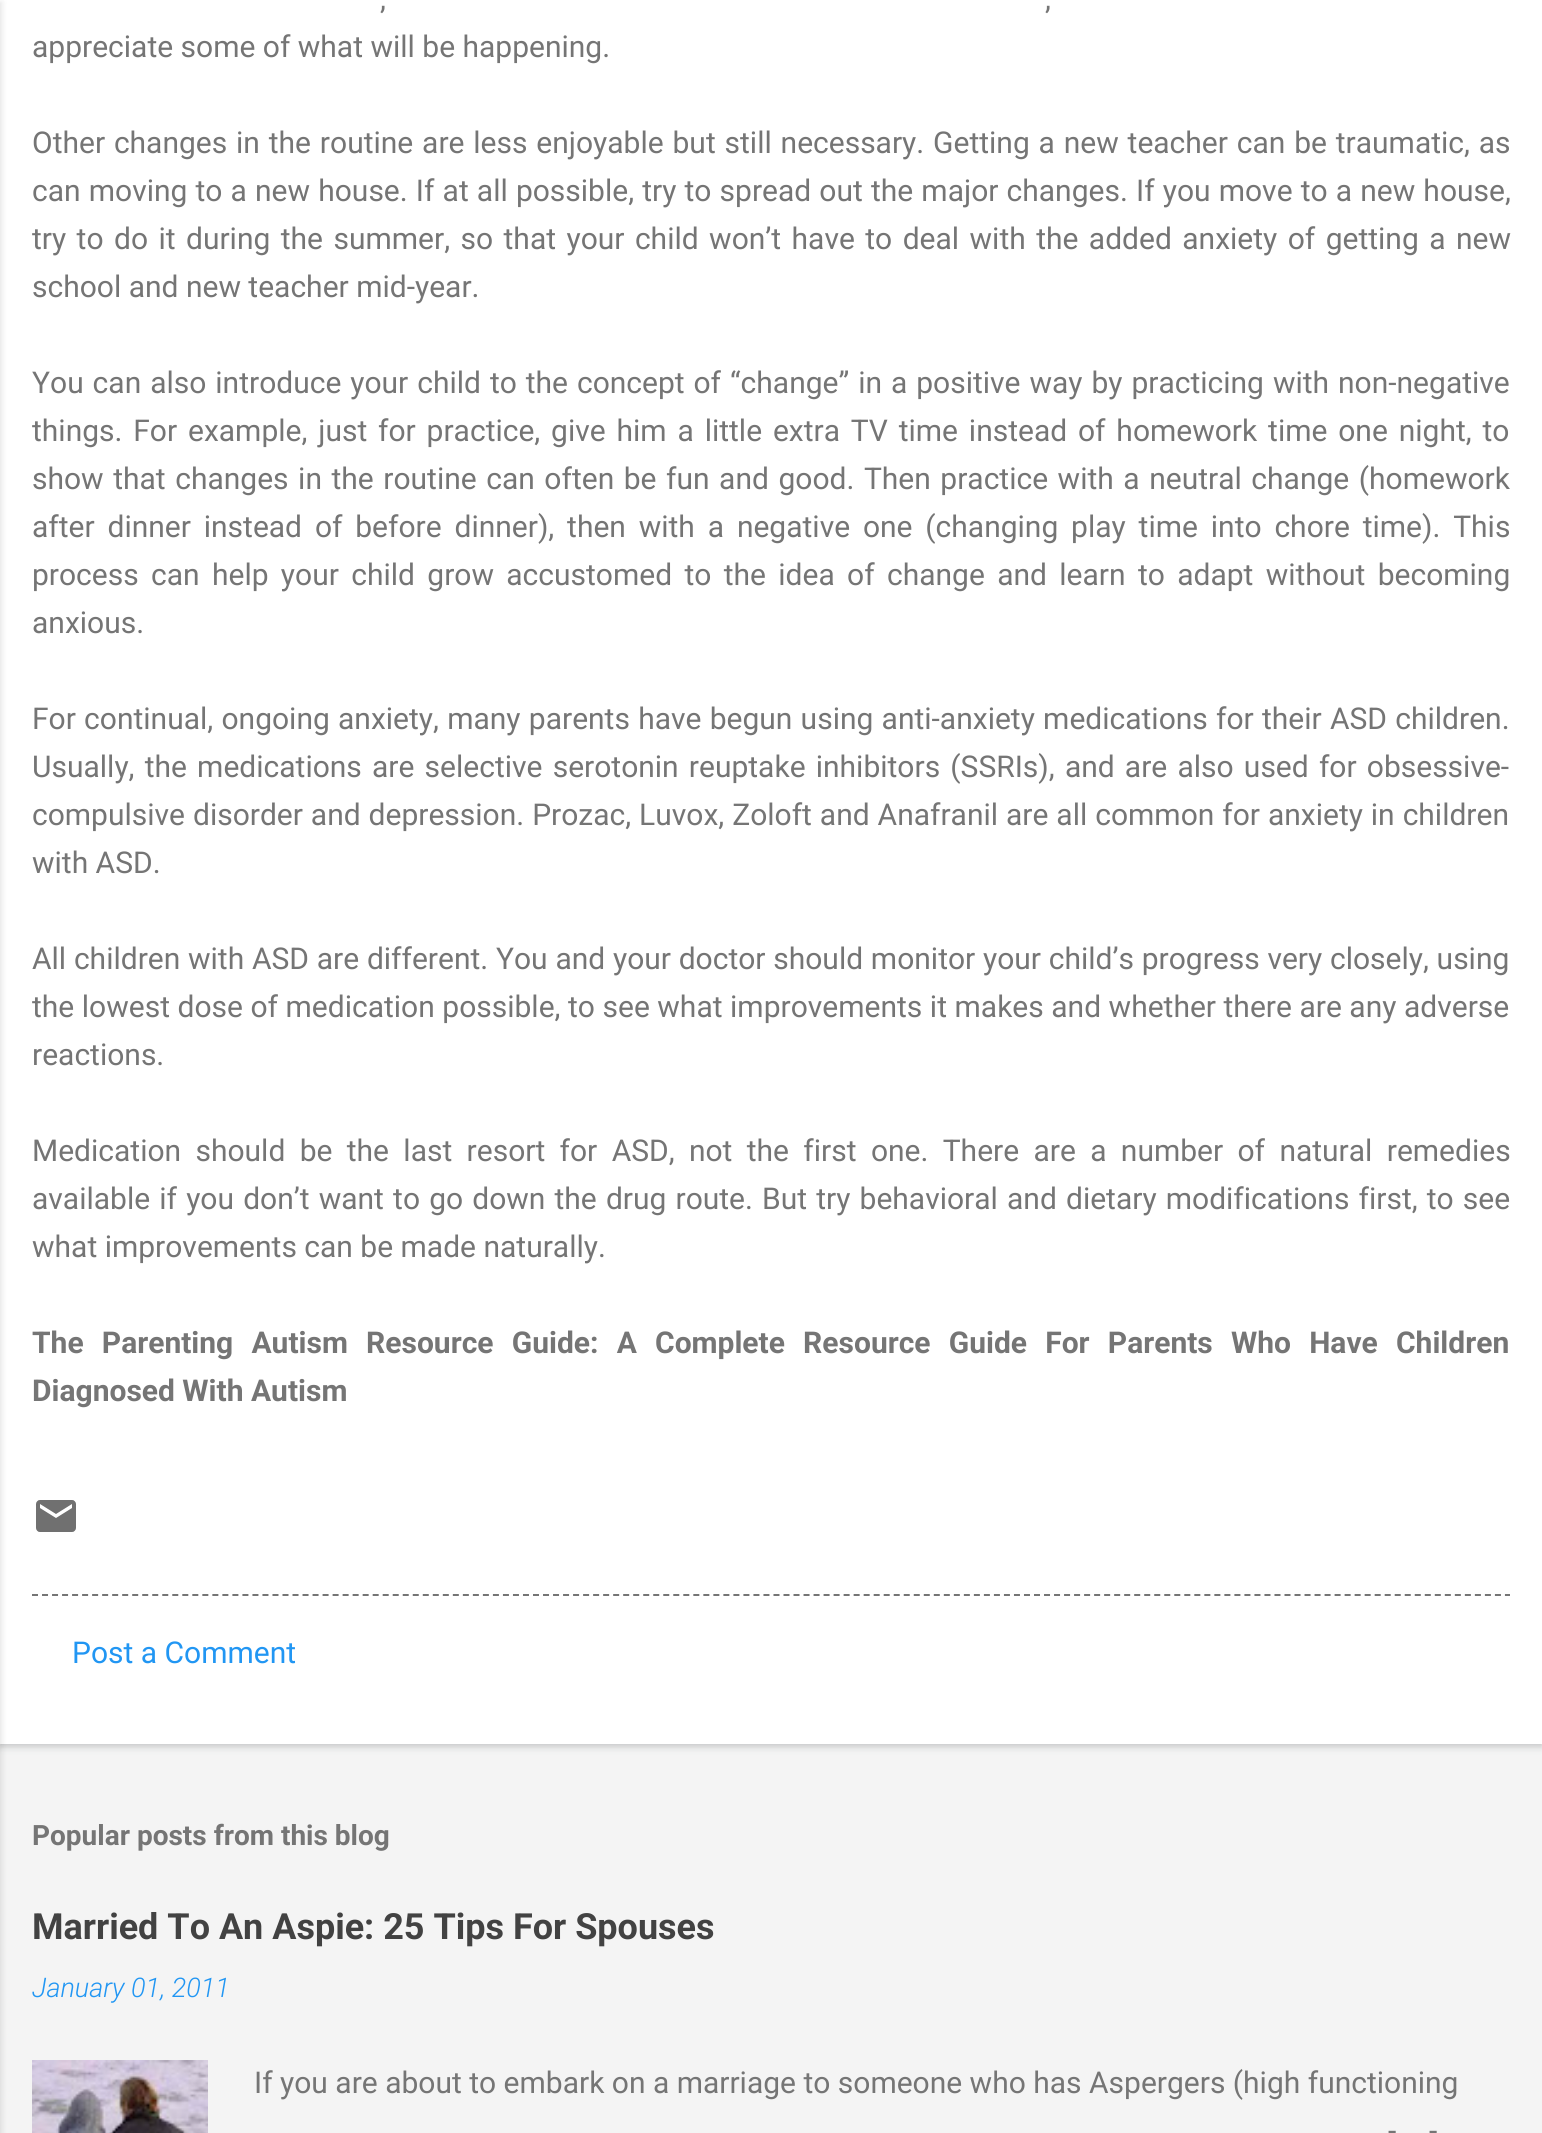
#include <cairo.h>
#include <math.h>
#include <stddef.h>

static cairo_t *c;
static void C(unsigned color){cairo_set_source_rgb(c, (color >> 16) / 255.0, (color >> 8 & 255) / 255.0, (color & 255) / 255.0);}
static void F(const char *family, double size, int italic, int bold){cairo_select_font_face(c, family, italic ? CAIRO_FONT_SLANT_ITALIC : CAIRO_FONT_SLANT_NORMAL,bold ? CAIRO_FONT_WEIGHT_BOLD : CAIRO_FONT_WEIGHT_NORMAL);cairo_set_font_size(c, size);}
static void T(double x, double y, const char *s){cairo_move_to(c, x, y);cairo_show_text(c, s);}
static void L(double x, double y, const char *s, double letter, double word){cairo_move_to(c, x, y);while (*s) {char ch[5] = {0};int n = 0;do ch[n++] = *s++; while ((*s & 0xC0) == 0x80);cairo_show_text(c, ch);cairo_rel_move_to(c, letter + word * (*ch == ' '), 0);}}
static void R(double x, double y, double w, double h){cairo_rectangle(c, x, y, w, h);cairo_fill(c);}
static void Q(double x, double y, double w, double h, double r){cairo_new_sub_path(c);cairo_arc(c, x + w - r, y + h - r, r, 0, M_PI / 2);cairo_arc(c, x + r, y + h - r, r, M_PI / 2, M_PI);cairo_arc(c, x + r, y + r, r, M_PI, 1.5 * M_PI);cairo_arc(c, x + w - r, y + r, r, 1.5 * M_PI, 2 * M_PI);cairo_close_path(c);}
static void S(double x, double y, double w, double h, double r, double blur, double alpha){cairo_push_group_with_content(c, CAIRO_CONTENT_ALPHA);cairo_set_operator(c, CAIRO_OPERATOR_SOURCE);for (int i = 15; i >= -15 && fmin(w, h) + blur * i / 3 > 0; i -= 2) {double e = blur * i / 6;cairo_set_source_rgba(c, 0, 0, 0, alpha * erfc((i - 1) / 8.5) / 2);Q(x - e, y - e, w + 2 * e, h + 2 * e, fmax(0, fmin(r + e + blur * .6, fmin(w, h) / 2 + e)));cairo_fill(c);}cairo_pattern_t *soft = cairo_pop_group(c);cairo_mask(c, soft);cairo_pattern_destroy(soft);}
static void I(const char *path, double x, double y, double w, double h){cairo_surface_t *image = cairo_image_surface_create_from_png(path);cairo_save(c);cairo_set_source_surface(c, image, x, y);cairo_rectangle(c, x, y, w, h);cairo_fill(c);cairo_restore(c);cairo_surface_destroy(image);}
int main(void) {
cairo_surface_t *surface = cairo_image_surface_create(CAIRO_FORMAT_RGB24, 1542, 2133);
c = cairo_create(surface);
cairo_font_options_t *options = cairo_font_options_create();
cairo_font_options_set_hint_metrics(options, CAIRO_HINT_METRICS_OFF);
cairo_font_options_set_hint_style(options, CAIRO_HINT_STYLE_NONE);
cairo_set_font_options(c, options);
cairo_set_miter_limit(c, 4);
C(0xf4f4f4);
cairo_paint(c);
C(0x3c4043);
S(0,-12,1542,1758,0,4,.3);
C(0xffffff);
R(0,0,1542,1744);
C(0x000000);
S(-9,2,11,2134,0,3,.1);
F("Roboto",30,0,0);
C(0x757575);
L(380,9,",",0,7);
L(1045,9,",",0,7);
T(32,57,"appreciate some of what will be happening.");
L(32,153,"Other changes in the routine are less enjoyable but still necessary. Getting a new teacher can be traumatic, as",0,1.4);
L(32,201,"can moving to a new house. If at all possible, try to spread out the major changes. If you move to a new house,",0,.7);
L(32,249,"try to do it during the summer, so that your child won’t have to deal with the added anxiety of getting a new",0,3);
T(32,297,"school and new teacher mid-year.");
L(32,393,"You can also introduce your child to the concept of “change” in a positive way by practicing with non-negative",0,1.5);
L(32,441,"things. For example, just for practice, give him a little extra TV time instead of homework time one night, to",0,3.4);
L(32,489,"show that changes in the routine can often be fun and good. Then practice with a neutral change (homework",0,2.1);
L(32,537,"after dinner instead of before dinner), then with a negative one (changing play time into chore time). This",0,5.4);
L(32,585,"process can help your child grow accustomed to the idea of change and learn to adapt without becoming",0,4.9);
T(32,633,"anxious.");
L(32,729,"For continual, ongoing anxiety, many parents have begun using anti-anxiety medications for their ASD children.",0,.8);
L(32,777,"Usually, the medications are selective serotonin reuptake inhibitors (SSRIs), and are also used for obsessive-",0,2.75);
L(32,825,"compulsive disorder and depression. Prozac, Luvox, Zoloft and Anafranil are all common for anxiety in children",0,.5);
T(32,873,"with ASD.");
L(32,969,"All children with ASD are different. You and your doctor should monitor your child’s progress very closely, using",0,.3);
L(32,1017,"the lowest dose of medication possible, to see what improvements it makes and whether there are any adverse",0,.1);
T(32,1065,"reactions.");
L(32,1161,"Medication should be the last resort for ASD, not the first one. There are a number of natural remedies",0,6.9);
L(32,1209,"available if you don’t want to go down the drug route. But try behavioral and dietary modifications first, to see",0,1.7);
T(32,1257,"what improvements can be made naturally.");
F("Roboto",30,0,1);
L(32,1353,"The Parenting Autism Resource Guide: A Complete Resource Guide For Parents Who Have Children",0,10.75);
T(32,1401,"Diagnosed With Autism");
I("1.png",36,1500,40,32);
cairo_new_path(c);
cairo_move_to(c,32,1595);
cairo_line_to(c,1510,1595);
cairo_set_dash(c,(double[]){6,4.02},2,0);
cairo_stroke(c);
F("Roboto",30,0,0);
C(0x2196f3);
T(72,1663,"Post a Comment");
F("Roboto",28,0,1);
C(0x757575);
T(32,1845,"Popular posts from this blog");
F("Roboto",36,0,1);
C(0x424242);
T(32,1939,"Married To An Aspie: 25 Tips For Spouses");
F("Roboto Light",27,1,0);
C(0x2196f3);
T(32,1997,"January 01, 2011");
I("2.png",32,2060,176,73);
F("Roboto",30,0,0);
C(0x757575);
T(254,2093,"If you are about to embark on a marriage to someone who has Aspergers (high functioning");
T(1388,2141,"-");
T(1429,2141,"-");
cairo_surface_write_to_png(surface, "o.png");
cairo_font_options_destroy(options);
cairo_destroy(c);
cairo_surface_destroy(surface);
return 0;
}
